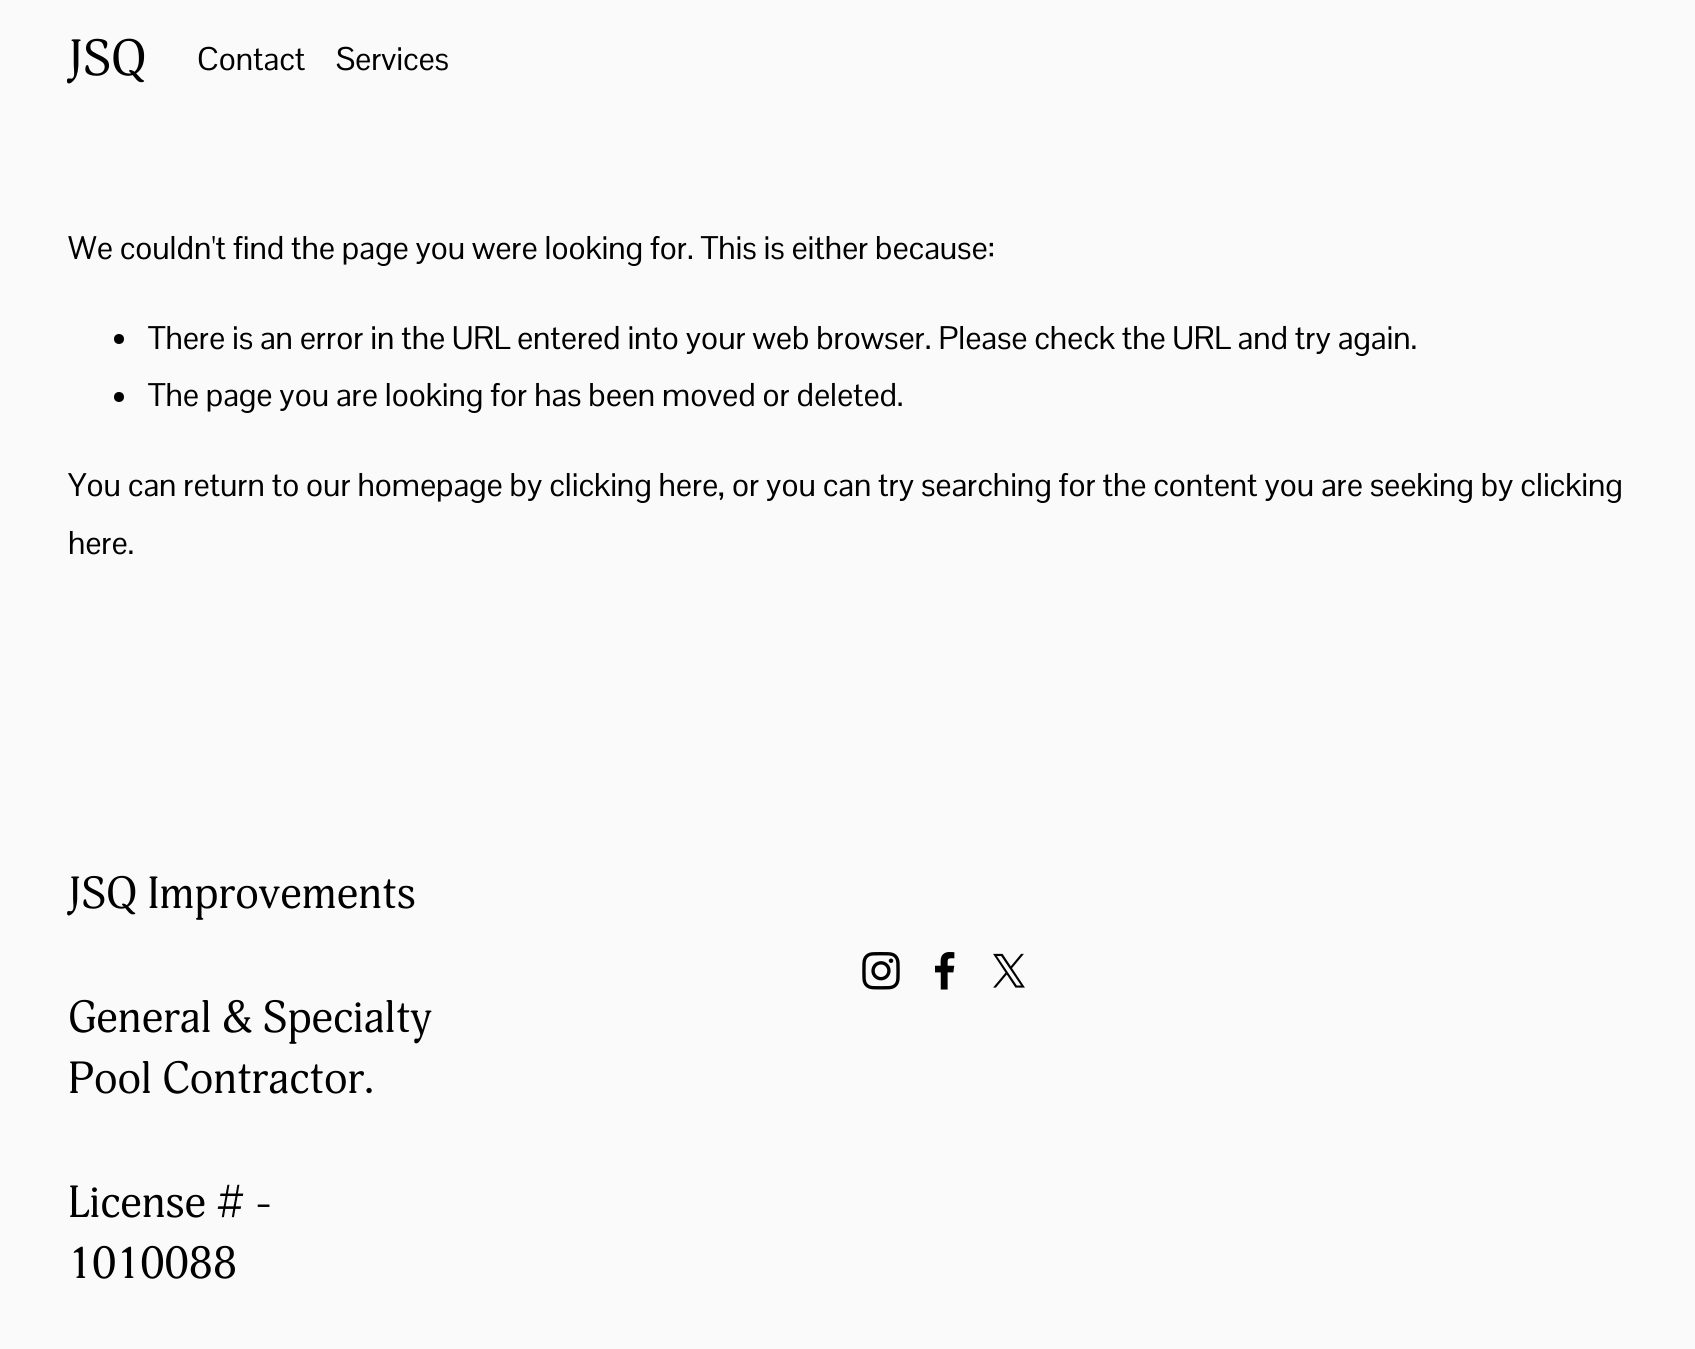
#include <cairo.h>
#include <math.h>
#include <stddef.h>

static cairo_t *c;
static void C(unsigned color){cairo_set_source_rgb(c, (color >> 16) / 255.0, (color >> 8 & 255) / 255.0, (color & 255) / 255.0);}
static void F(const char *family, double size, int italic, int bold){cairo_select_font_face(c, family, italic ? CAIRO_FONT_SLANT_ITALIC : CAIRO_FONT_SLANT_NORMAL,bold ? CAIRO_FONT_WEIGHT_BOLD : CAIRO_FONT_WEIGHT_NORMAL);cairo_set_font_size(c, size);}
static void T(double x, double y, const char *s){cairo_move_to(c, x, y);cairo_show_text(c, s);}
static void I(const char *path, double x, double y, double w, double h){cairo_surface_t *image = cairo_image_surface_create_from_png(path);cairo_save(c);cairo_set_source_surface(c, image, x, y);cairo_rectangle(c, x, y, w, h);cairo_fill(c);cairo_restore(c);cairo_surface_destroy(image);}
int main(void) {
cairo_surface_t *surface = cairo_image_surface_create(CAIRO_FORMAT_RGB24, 1695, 1349);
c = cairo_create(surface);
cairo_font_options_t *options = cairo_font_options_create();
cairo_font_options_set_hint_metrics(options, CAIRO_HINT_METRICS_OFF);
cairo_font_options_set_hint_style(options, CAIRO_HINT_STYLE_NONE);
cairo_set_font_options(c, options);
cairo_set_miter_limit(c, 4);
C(0xfafafa);
cairo_paint(c);
F("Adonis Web",50,0,0);
C(0x000000);
T(68,75,"JSQ");
F("Pontano Sans",32,0,0);
T(197,70,"Contact");
T(336,70,"Services");
T(68,259,"We couldn't find the page you were looking for. This is either because:");
cairo_new_path(c);
cairo_arc(c,119,339,5,0,2 * M_PI);
cairo_fill(c);
T(148,349,"There is an error in the URL entered into your web browser. Please check the URL and try again.");
cairo_new_path(c);
cairo_arc(c,119,397,5,0,2 * M_PI);
cairo_fill(c);
T(148,406,"The page you are looking for has been moved or deleted.");
T(68,496,"You can return to our homepage by clicking here, or you can try searching for the content you are seeking by clicking");
T(68,554,"here.");
F("Adonis Web",44.25,0,0);
T(68,908,"JSQ Improvements");
T(68,1032,"General & Specialty");
T(68,1093,"Pool Contractor.");
T(68,1217,"License # -");
T(68,1278,"1010088");
I("1.png",862,952,38,38);
I("2.png",935,952,20,38);
I("3.png",993,953,32,35);
cairo_surface_write_to_png(surface, "o.png");
cairo_font_options_destroy(options);
cairo_destroy(c);
cairo_surface_destroy(surface);
return 0;
}
